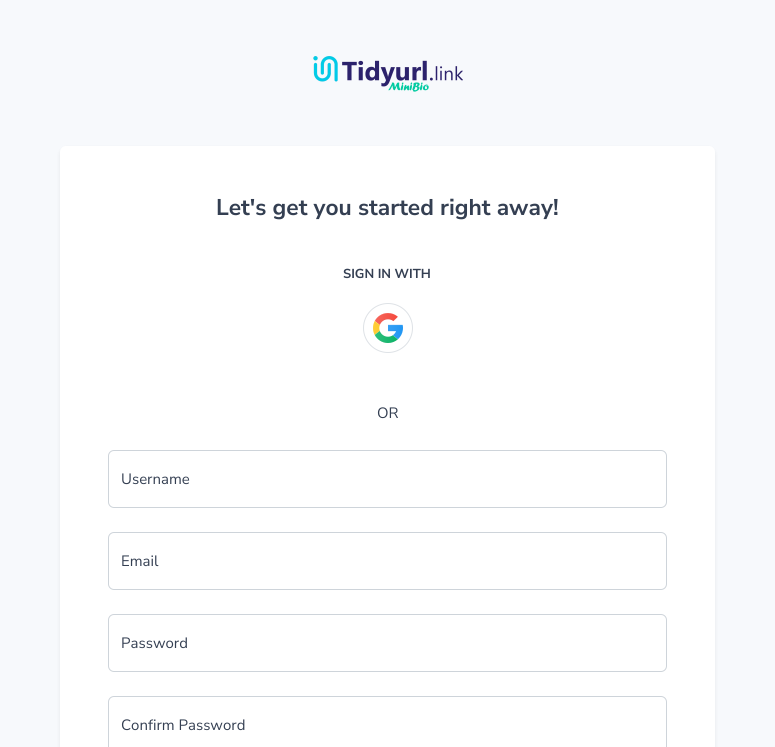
#include <cairo.h>
#include <math.h>
#include <stddef.h>

static cairo_t *c;
static void C(unsigned color){cairo_set_source_rgb(c, (color >> 16) / 255.0, (color >> 8 & 255) / 255.0, (color & 255) / 255.0);}
static void F(const char *family, double size, int italic, int bold){cairo_select_font_face(c, family, italic ? CAIRO_FONT_SLANT_ITALIC : CAIRO_FONT_SLANT_NORMAL,bold ? CAIRO_FONT_WEIGHT_BOLD : CAIRO_FONT_WEIGHT_NORMAL);cairo_set_font_size(c, size);}
static void T(double x, double y, const char *s){cairo_move_to(c, x, y);cairo_show_text(c, s);}
static void Q(double x, double y, double w, double h, double r){cairo_new_sub_path(c);cairo_arc(c, x + w - r, y + h - r, r, 0, M_PI / 2);cairo_arc(c, x + r, y + h - r, r, M_PI / 2, M_PI);cairo_arc(c, x + r, y + r, r, M_PI, 1.5 * M_PI);cairo_arc(c, x + w - r, y + r, r, 1.5 * M_PI, 2 * M_PI);cairo_close_path(c);}
static void S(double x, double y, double w, double h, double r, double blur, double alpha){cairo_push_group_with_content(c, CAIRO_CONTENT_ALPHA);cairo_set_operator(c, CAIRO_OPERATOR_SOURCE);for (int i = 15; i >= -15 && fmin(w, h) + blur * i / 3 > 0; i -= 2) {double e = blur * i / 6;cairo_set_source_rgba(c, 0, 0, 0, alpha * erfc((i - 1) / 8.5) / 2);Q(x - e, y - e, w + 2 * e, h + 2 * e, fmax(0, fmin(r + e + blur * .6, fmin(w, h) / 2 + e)));cairo_fill(c);}cairo_pattern_t *soft = cairo_pop_group(c);cairo_mask(c, soft);cairo_pattern_destroy(soft);}
static void I(const char *path, double x, double y, double w, double h){cairo_surface_t *image = cairo_image_surface_create_from_png(path);cairo_save(c);cairo_set_source_surface(c, image, x, y);cairo_rectangle(c, x, y, w, h);cairo_fill(c);cairo_restore(c);cairo_surface_destroy(image);}
int main(void) {
cairo_surface_t *surface = cairo_image_surface_create(CAIRO_FORMAT_RGB24, 775, 747);
c = cairo_create(surface);
cairo_font_options_t *options = cairo_font_options_create();
cairo_font_options_set_hint_metrics(options, CAIRO_HINT_METRICS_OFF);
cairo_font_options_set_hint_style(options, CAIRO_HINT_STYLE_NONE);
cairo_set_font_options(c, options);
cairo_set_miter_limit(c, 4);
C(0xf7f9fc);
cairo_paint(c);
I("1.png",313,56,150,36);
C(0x000000);
S(60,148,655,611,6,2,.07);
C(0xffffff);
Q(60,146,655,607,6);
cairo_fill(c);
F("Nunito Sans",22.75,0,1);
C(0x343f52);
T(216,215,"Let's get you started right away!");
F("Nunito Sans",13,0,1);
T(343,278,"SIGN IN WITH");
cairo_new_path(c);
cairo_arc(c,388,328,24.5,0,2 * M_PI);
C(0xdee2e6);
cairo_set_line_width(c,1);
cairo_stroke(c);
I("2.png",373,313,30,30);
F("Nunito Sans",15,0,0);
C(0x343f52);
T(377,418,"OR");
Q(108.5,450.5,558,57,5.5);
C(0xced4da);
cairo_stroke(c);
C(0x343f52);
T(121,484,"Username");
Q(108.5,532.5,558,57,5.5);
C(0xced4da);
cairo_stroke(c);
C(0x343f52);
T(121,566,"Email");
Q(108.5,614.5,558,57,5.5);
C(0xced4da);
cairo_stroke(c);
C(0x343f52);
T(121,648,"Password");
Q(108.5,696.5,558,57,5.5);
C(0xced4da);
cairo_stroke(c);
C(0x343f52);
T(121,730,"Confirm Password");
cairo_surface_write_to_png(surface, "o.png");
cairo_font_options_destroy(options);
cairo_destroy(c);
cairo_surface_destroy(surface);
return 0;
}
